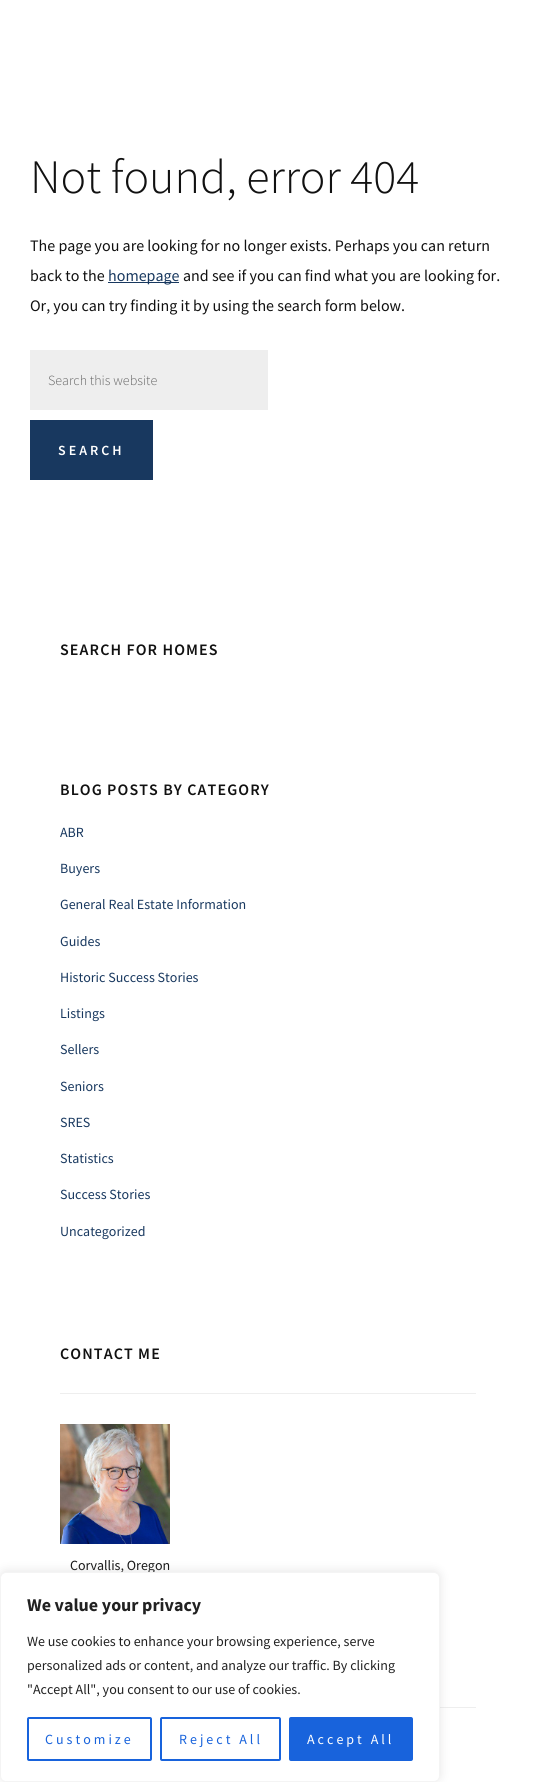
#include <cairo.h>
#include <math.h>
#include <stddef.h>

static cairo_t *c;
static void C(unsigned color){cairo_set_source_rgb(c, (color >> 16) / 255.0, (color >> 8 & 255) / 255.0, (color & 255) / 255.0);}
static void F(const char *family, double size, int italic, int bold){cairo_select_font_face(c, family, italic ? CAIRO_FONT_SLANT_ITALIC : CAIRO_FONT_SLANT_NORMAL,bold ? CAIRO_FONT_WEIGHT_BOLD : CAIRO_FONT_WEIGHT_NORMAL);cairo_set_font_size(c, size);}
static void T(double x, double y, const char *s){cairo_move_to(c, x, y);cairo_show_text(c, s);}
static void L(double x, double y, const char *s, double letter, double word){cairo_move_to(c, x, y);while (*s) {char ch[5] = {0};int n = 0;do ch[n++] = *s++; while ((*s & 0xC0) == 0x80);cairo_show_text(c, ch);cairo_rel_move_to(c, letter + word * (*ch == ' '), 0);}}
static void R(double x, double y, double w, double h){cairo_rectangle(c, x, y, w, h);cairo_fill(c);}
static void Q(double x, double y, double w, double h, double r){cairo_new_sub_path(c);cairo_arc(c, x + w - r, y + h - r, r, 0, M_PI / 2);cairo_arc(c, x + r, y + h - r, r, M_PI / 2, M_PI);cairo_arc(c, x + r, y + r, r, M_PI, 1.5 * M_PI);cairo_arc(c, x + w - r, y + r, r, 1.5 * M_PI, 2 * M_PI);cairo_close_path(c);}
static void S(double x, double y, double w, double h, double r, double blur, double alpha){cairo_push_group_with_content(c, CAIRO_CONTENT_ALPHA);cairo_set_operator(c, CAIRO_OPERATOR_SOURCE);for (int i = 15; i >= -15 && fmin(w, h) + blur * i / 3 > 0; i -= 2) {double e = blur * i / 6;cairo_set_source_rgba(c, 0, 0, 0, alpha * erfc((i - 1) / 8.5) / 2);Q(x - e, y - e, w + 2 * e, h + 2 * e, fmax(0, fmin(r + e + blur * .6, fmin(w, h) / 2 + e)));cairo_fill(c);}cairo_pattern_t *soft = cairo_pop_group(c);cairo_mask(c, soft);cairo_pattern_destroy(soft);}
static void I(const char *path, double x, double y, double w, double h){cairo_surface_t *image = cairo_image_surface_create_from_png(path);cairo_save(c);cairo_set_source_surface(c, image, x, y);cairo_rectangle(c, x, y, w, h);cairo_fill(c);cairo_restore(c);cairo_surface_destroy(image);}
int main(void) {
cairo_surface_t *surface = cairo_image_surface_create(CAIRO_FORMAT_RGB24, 536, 1782);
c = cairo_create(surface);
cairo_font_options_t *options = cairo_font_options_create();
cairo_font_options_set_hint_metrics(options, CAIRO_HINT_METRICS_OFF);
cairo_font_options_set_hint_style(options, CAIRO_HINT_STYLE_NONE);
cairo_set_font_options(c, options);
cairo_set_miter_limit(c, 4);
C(0xffffff);
cairo_paint(c);
F("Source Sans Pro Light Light",48,0,0);
C(0x111111);
T(30,193,"Not found, error 404");
F("Source Sans Pro",16,0,0);
T(30,251,"The page you are looking for no longer exists. Perhaps you can return");
T(30,281,"back to the");
C(0x18385f);
R(108,282,71,1);
T(108,281,"homepage");
C(0x111111);
T(183,281,"and see if you can find what you are looking for.");
T(30,311,"Or, you can try finding it by using the search form below.");
C(0xeeeeee);
R(30,350,238,60);
F("Source Sans Pro Light Light",14,0,0);
C(0x666666);
T(48,385,"Search this website");
C(0x18385f);
R(30,420,123,60);
F("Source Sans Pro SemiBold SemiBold",14,0,0);
C(0xffffff);
L(58,455,"SEARCH",3,0);
F("Source Sans Pro SemiBold SemiBold",16,0,0);
C(0x111111);
L(60,655,"SEARCH FOR HOMES",1.1,0);
L(60,795,"BLOG POSTS BY CATEGORY",1.1,0);
F("Source Sans Pro",14,0,0);
C(0x18385f);
T(60,837,"ABR");
T(60,873,"Buyers");
T(60,909,"General Real Estate Information");
T(60,946,"Guides");
T(60,982,"Historic Success Stories");
T(60,1018,"Listings");
T(60,1054,"Sellers");
T(60,1091,"Seniors");
T(60,1127,"SRES");
T(60,1163,"Statistics");
T(60,1199,"Success Stories");
T(60,1236,"Uncategorized");
F("Source Sans Pro SemiBold SemiBold",16,0,0);
C(0x111111);
L(60,1359,"CONTACT ME",1.1,0);
C(0xeeeeee);
R(60,1393,416,1);
I("1.png",60,1424,110,120);
F("Source Sans Pro",14,0,0);
C(0x111111);
T(70,1570,"Corvallis, Oregon");
C(0xeeeeee);
R(440,1707,36,1);
C(0xacabab);
S(0,1571,440,210,6,5,.3);
C(0xffffff);
Q(.5,1572.5,439,209,5.5);
cairo_fill_preserve(c);
C(0xf4f4f4);
cairo_set_line_width(c,1);
cairo_stroke(c);
F("Source Sans Pro",18,0,1);
C(0x212121);
T(27,1611,"We value your privacy");
F("Source Sans Pro",14,0,0);
T(27,1646,"We use cookies to enhance your browsing experience, serve");
T(27,1670,"personalized ads or content, and analyze our traffic. By clicking");
T(27,1694,"\"Accept All\", you consent to our use of cookies.");
Q(28,1718,123,42,1);
C(0x1863dc);
cairo_set_line_width(c,2);
cairo_stroke(c);
L(45,1744,"Customize",3,0);
Q(161,1718,119,42,1);
cairo_stroke(c);
L(179,1744,"Reject All",3,0);
Q(290,1718,122,42,1);
cairo_fill_preserve(c);
cairo_stroke(c);
C(0xffffff);
L(307,1744,"Accept All",3,0);
cairo_surface_write_to_png(surface, "o.png");
cairo_font_options_destroy(options);
cairo_destroy(c);
cairo_surface_destroy(surface);
return 0;
}
